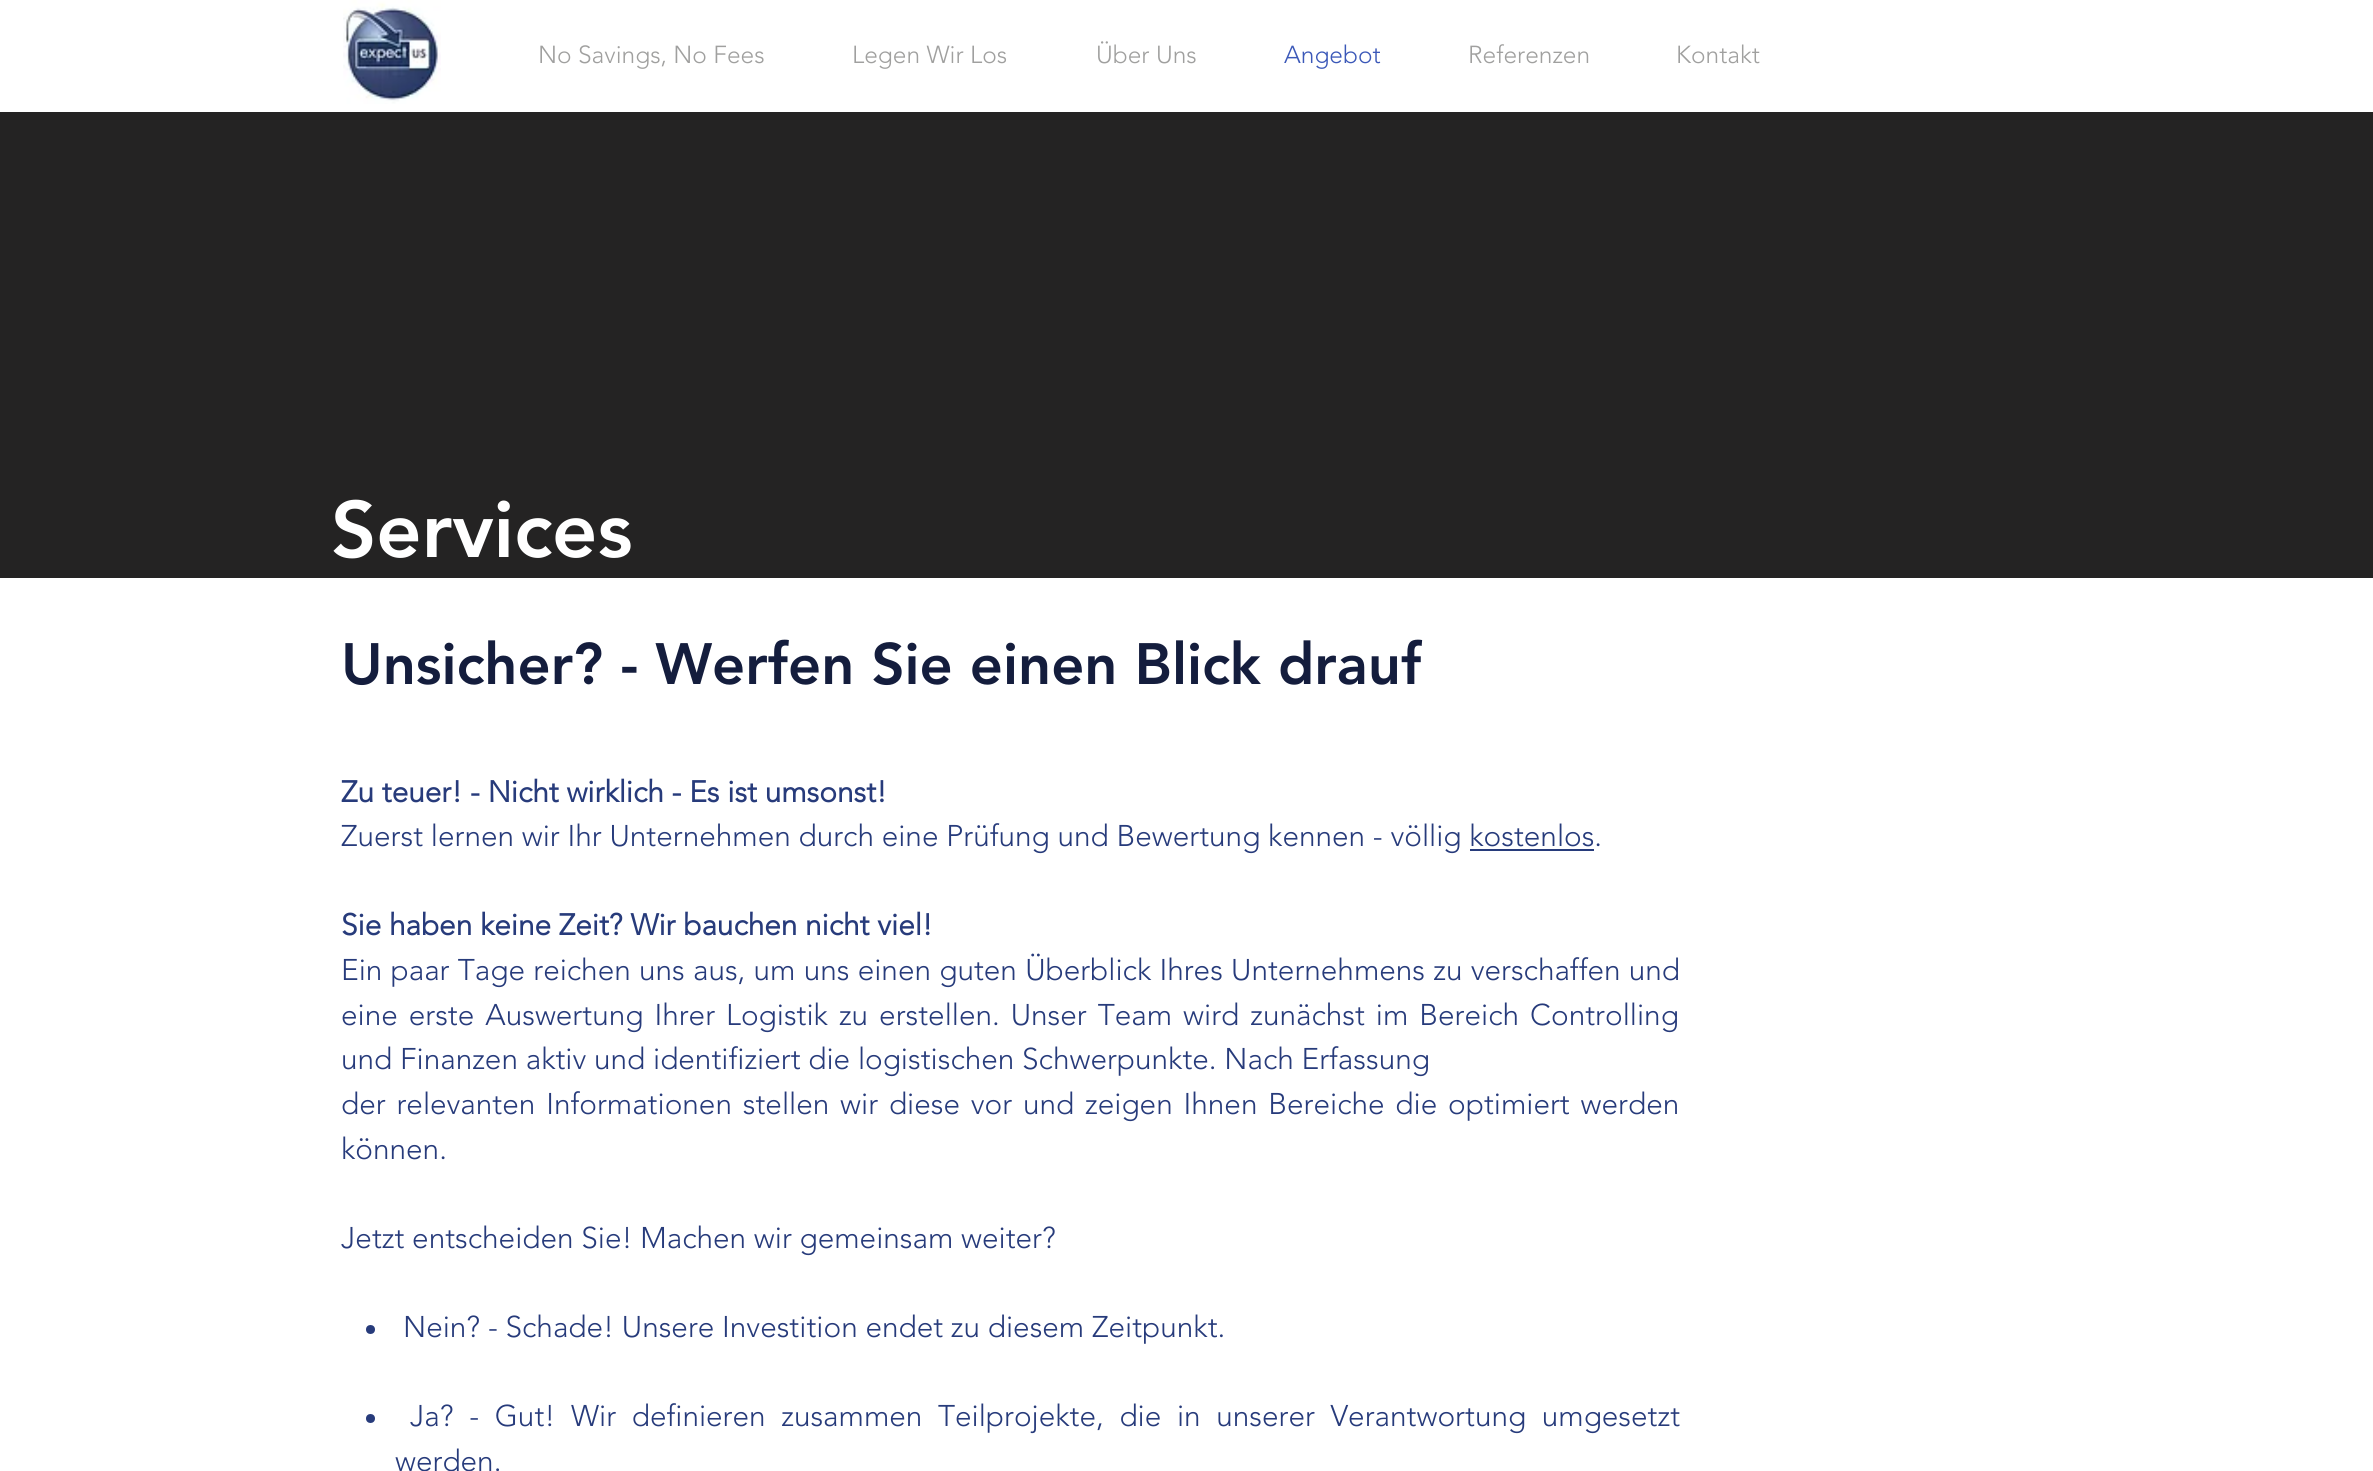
#include <cairo.h>
#include <math.h>
#include <stddef.h>

static cairo_t *c;
static void C(unsigned color){cairo_set_source_rgb(c, (color >> 16) / 255.0, (color >> 8 & 255) / 255.0, (color & 255) / 255.0);}
static void F(const char *family, double size, int italic, int bold){cairo_select_font_face(c, family, italic ? CAIRO_FONT_SLANT_ITALIC : CAIRO_FONT_SLANT_NORMAL,bold ? CAIRO_FONT_WEIGHT_BOLD : CAIRO_FONT_WEIGHT_NORMAL);cairo_set_font_size(c, size);}
static void T(double x, double y, const char *s){cairo_move_to(c, x, y);cairo_show_text(c, s);}
static void L(double x, double y, const char *s, double letter, double word){cairo_move_to(c, x, y);while (*s) {char ch[5] = {0};int n = 0;do ch[n++] = *s++; while ((*s & 0xC0) == 0x80);cairo_show_text(c, ch);cairo_rel_move_to(c, letter + word * (*ch == ' '), 0);}}
static void R(double x, double y, double w, double h){cairo_rectangle(c, x, y, w, h);cairo_fill(c);}
static void I(const char *path, double x, double y, double w, double h){cairo_surface_t *image = cairo_image_surface_create_from_png(path);cairo_save(c);cairo_set_source_surface(c, image, x, y);cairo_rectangle(c, x, y, w, h);cairo_fill(c);cairo_restore(c);cairo_surface_destroy(image);}
int main(void) {
cairo_surface_t *surface = cairo_image_surface_create(CAIRO_FORMAT_RGB24, 2373, 1471);
c = cairo_create(surface);
cairo_font_options_t *options = cairo_font_options_create();
cairo_font_options_set_hint_metrics(options, CAIRO_HINT_METRICS_OFF);
cairo_font_options_set_hint_style(options, CAIRO_HINT_STYLE_NONE);
cairo_set_font_options(c, options);
cairo_set_miter_limit(c, 4);
C(0xffffff);
cairo_paint(c);
F("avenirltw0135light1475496 Light",24.5,0,0);
C(0xa0a09f);
T(538,63,"No Savings, No Fees");
T(852,63,"Legen Wir Los");
T(1096,63,"Über Uns");
C(0x3b58b8);
T(1284,63,"Angebot");
C(0xa0a09f);
T(1468,63,"Referenzen");
T(1676,63,"Kontakt");
I("1.png",343,0,98,104);
C(0x242323);
R(0,112,2373,466);
F("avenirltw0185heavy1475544 Black",79,0,0);
C(0xffffff);
T(331,557,"Services");
F("avenirltw0185heavy1475544 Black",57.75,0,0);
C(0x141d3d);
T(341,684,"Unsicher? - Werfen Sie einen Blick drauf");
F("avenirltw0135light1475496",29.75,0,1);
C(0x273b7b);
T(341,802,"Zu teuer! - Nicht wirklich - Es ist umsonst!");
F("avenirltw0135light1475496 Light",29.75,0,0);
T(341,846,"Zuerst lernen wir Ihr Unternehmen durch eine Prüfung und Bewertung kennen - völlig kostenlos.");
R(1470,849,124,2);
F("avenirltw0135light1475496",29.75,0,1);
T(341,935,"Sie haben keine Zeit? Wir bauchen nicht viel!");
F("avenirltw0135light1475496 Light",29.75,0,0);
L(341,980,"Ein paar Tage reichen uns aus, um uns einen guten Überblick Ihres Unternehmens zu verschaffen und",0,.5);
L(341,1025,"eine erste Auswertung Ihrer Logistik zu erstellen. Unser Team wird zunächst im Bereich Controlling",0,3.25);
T(341,1069,"und Finanzen aktiv und identifiziert die logistischen Schwerpunkte. Nach Erfassung");
L(341,1114,"der relevanten Informationen stellen wir diese vor und zeigen Ihnen Bereiche die optimiert werden",0,3.1);
T(341,1159,"können.");
T(341,1248,"Jetzt entscheiden Sie! Machen wir gemeinsam weiter?");
cairo_new_path(c);
cairo_arc(c,370.5,1329.5,4.5,0,2 * M_PI);
cairo_fill(c);
T(403,1337,"Nein? - Schade! Unsere Investition endet zu diesem Zeitpunkt.");
cairo_new_path(c);
cairo_arc(c,370.5,1418.5,4.5,0,2 * M_PI);
cairo_fill(c);
L(410,1426,"Ja? - Gut! Wir definieren zusammen Teilprojekte, die in unserer Verantwortung umgesetzt",0,7.9);
T(395,1471,"werden.");
cairo_surface_write_to_png(surface, "o.png");
cairo_font_options_destroy(options);
cairo_destroy(c);
cairo_surface_destroy(surface);
return 0;
}
